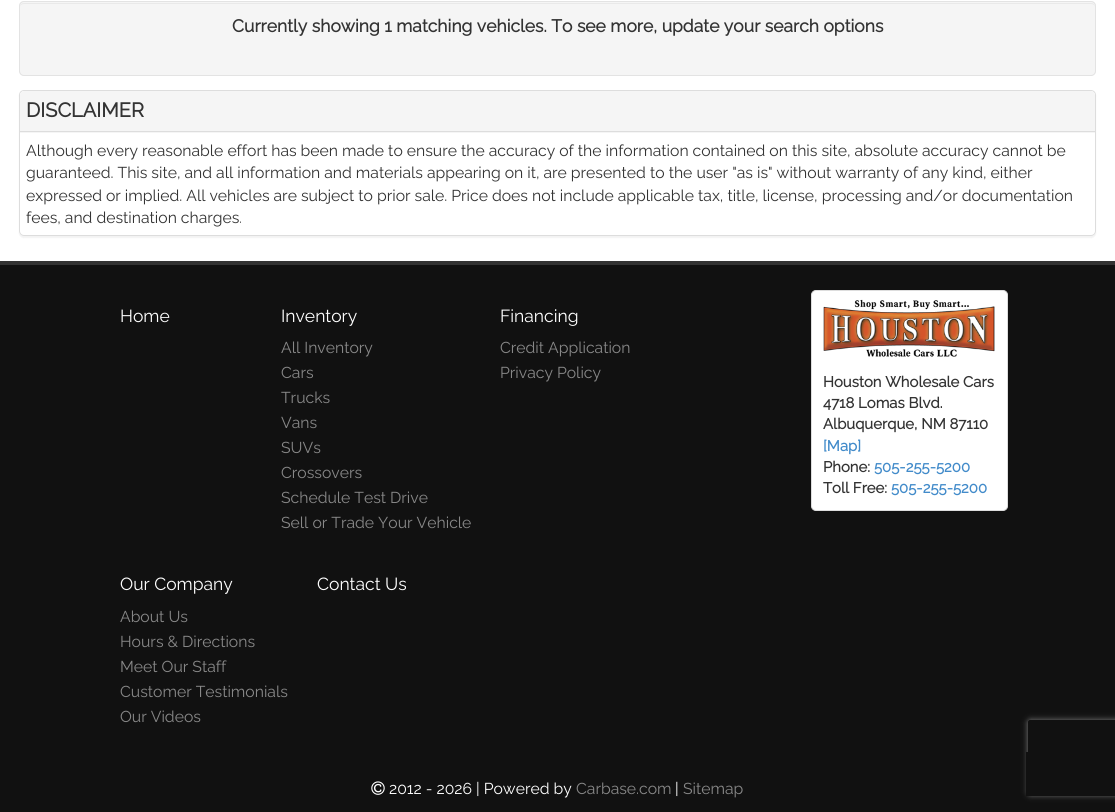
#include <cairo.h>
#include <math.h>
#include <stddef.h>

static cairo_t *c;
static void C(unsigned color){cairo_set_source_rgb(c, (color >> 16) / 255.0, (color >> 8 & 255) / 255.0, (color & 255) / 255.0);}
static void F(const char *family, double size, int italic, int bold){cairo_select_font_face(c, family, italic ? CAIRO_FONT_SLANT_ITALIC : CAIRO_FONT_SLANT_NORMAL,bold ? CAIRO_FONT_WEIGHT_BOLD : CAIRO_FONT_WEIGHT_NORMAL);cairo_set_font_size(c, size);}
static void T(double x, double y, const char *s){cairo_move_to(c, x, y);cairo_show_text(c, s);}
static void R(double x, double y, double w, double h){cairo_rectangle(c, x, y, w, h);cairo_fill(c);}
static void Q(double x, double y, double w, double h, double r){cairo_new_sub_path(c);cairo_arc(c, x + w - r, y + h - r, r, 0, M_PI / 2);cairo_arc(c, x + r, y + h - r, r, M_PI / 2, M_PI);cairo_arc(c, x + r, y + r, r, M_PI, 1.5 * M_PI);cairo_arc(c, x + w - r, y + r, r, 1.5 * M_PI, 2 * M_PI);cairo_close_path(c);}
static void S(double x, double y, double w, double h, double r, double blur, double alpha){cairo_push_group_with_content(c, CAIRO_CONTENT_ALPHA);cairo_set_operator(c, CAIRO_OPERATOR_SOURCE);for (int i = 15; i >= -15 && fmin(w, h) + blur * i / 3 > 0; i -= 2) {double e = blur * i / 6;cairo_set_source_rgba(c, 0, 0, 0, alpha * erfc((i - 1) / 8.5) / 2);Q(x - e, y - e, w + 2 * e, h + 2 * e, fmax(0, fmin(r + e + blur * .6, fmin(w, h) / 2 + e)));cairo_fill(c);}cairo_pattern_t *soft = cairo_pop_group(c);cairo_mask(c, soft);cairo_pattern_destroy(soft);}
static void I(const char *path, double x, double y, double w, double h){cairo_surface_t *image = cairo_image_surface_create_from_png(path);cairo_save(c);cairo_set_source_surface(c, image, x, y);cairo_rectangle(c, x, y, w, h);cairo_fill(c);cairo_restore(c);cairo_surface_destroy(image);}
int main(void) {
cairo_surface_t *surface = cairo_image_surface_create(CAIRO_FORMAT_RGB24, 1115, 812);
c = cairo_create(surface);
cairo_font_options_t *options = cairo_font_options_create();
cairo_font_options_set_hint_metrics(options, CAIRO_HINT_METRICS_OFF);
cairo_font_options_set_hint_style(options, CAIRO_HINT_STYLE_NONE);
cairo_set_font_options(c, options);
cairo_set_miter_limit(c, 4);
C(0xffffff);
cairo_paint(c);
C(0xf5f5f5);
Q(19,1,1077,75,5);
cairo_fill(c);
C(0xe9e9e9);
cairo_new_path(c);
cairo_move_to(c,24,4);
cairo_line_to(c,1091,4);
cairo_curve_to(c,1093,4,1095,5,1095,8);
cairo_curve_to(c,1095,5,1094,3,1091,3);
cairo_line_to(c,24,3);
cairo_curve_to(c,21,3,20,5,20,8);
cairo_curve_to(c,20,5,22,4,24,4);
cairo_close_path(c);
cairo_fill(c);
Q(19.5,1.5,1076,74,4.5);
C(0xe3e3e3);
cairo_set_line_width(c,1);
cairo_stroke(c);
F("Raleway",17.5,0,1);
C(0x333333);
T(232,32,"Currently showing 1 matching vehicles. To see more, update your search options");
cairo_save(c);
cairo_set_fill_rule(c,CAIRO_FILL_RULE_EVEN_ODD);
cairo_new_path(c);
cairo_move_to(c,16,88);
cairo_line_to(c,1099,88);
cairo_line_to(c,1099,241);
cairo_line_to(c,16,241);
cairo_close_path(c);
cairo_move_to(c,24,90);
cairo_line_to(c,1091,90);
cairo_curve_to(c,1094,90,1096,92,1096,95);
cairo_line_to(c,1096,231);
cairo_curve_to(c,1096,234,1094,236,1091,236);
cairo_line_to(c,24,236);
cairo_curve_to(c,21,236,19,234,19,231);
cairo_line_to(c,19,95);
cairo_curve_to(c,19,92,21,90,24,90);
cairo_close_path(c);
cairo_clip(c);
C(0x000000);
S(19,91,1077,147,5,.5,.05);
cairo_restore(c);
Q(19.5,90.5,1076,145,4.5);
C(0xdddddd);
cairo_stroke(c);
C(0xf5f5f5);
cairo_new_path(c);
cairo_move_to(c,24,91);
cairo_line_to(c,1091,91);
cairo_curve_to(c,1093,91,1095,93,1095,95);
cairo_line_to(c,1095,133);
cairo_line_to(c,20,133);
cairo_line_to(c,20,95);
cairo_curve_to(c,20,93,22,91,24,91);
cairo_close_path(c);
cairo_fill(c);
C(0xdddddd);
R(20,131,1075,1);
F("Raleway",20,0,1);
C(0x333333);
T(26,117,"DISCLAIMER");
F("Raleway Thin",15.75,0,0);
T(26,156,"Although every reasonable effort has been made to ensure the accuracy of the information contained on this site, absolute accuracy cannot be");
T(26,178,"guaranteed. This site, and all information and materials appearing on it, are presented");
T(650,178,"to the user \"as is\" without warranty of any kind, either");
T(26,201,"expressed or implied. All vehicles are subject to prior sale. Price does not include applicable tax, title, license, processing and/or documentation");
T(26,223,"fees, and destination charges.");
C(0x111111);
R(0,265,1115,547);
C(0x333333);
R(0,261,1115,4);
F("Raleway Thin",17.5,0,0);
C(0xffffff);
T(120,322,"Home");
T(281,322,"Inventory");
F("Raleway Thin",15.75,0,0);
C(0x888888);
T(281,353,"All Inventory");
T(281,378,"Cars");
T(281,403,"Trucks");
T(281,428,"Vans");
T(281,453,"SUVs");
T(281,478,"Crossovers");
T(281,503,"Schedule Test Drive");
T(281,528,"Sell or Trade Your Vehicle");
F("Raleway Thin",17.5,0,0);
C(0xffffff);
T(500,322,"Financing");
F("Raleway Thin",15.75,0,0);
C(0x888888);
T(500,353,"Credit Application");
T(500,378,"Privacy Policy");
F("Raleway Thin",17.5,0,0);
C(0xffffff);
T(120,590,"Our Company");
F("Raleway Thin",15.75,0,0);
C(0x888888);
T(120,622,"About Us");
T(120,647,"Hours & Directions");
T(120,672,"Meet Our Staff");
T(120,697,"Customer Testimonials");
T(120,722,"Our Videos");
F("Raleway Thin",17.5,0,0);
C(0xffffff);
T(317,590,"Contact Us");
Q(811.5,290.5,196,220,4.5);
cairo_fill_preserve(c);
C(0xdddddd);
cairo_stroke(c);
I("1.png",823,299,172,58);
F("Raleway",14.9,0,1);
C(0x333333);
T(823,387,"Houston Wholesale Cars");
T(823,408,"4718 Lomas Blvd.");
T(823,429,"Albuquerque, NM 87110");
C(0x428bca);
T(823,451,"[Map]");
C(0x333333);
T(823,472,"Phone:");
C(0x428bca);
T(874,472,"505-255-5200");
C(0x333333);
T(823,493,"Toll Free:");
C(0x428bca);
T(891,493,"505-255-5200");
I("2.png",371,781,14,14);
F("Raleway Thin",15.75,0,0);
C(0xffffff);
T(389,794,"2012 - 2026 | Powered by");
C(0x888888);
T(576,794,"Carbase.com");
C(0xffffff);
T(675,794,"|");
C(0x888888);
T(683,794,"Sitemap");
cairo_save(c);
cairo_set_fill_rule(c,CAIRO_FILL_RULE_EVEN_ODD);
cairo_new_path(c);
cairo_move_to(c,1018,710);
cairo_line_to(c,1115,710);
cairo_line_to(c,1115,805);
cairo_line_to(c,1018,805);
cairo_close_path(c);
cairo_move_to(c,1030.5,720);
cairo_line_to(c,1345.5,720);
cairo_curve_to(c,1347,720,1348,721,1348,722.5);
cairo_line_to(c,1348,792.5);
cairo_curve_to(c,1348,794,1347,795,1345.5,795);
cairo_line_to(c,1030.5,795);
cairo_curve_to(c,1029,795,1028,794,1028,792.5);
cairo_line_to(c,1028,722.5);
cairo_curve_to(c,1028,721,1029,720,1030.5,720);
cairo_close_path(c);
cairo_clip(c);
C(0x808080);
S(1028,720,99,75,2.5,3,1);
cairo_restore(c);
C(0x111111);
R(1026,752,89,44);
cairo_surface_write_to_png(surface, "o.png");
cairo_font_options_destroy(options);
cairo_destroy(c);
cairo_surface_destroy(surface);
return 0;
}
